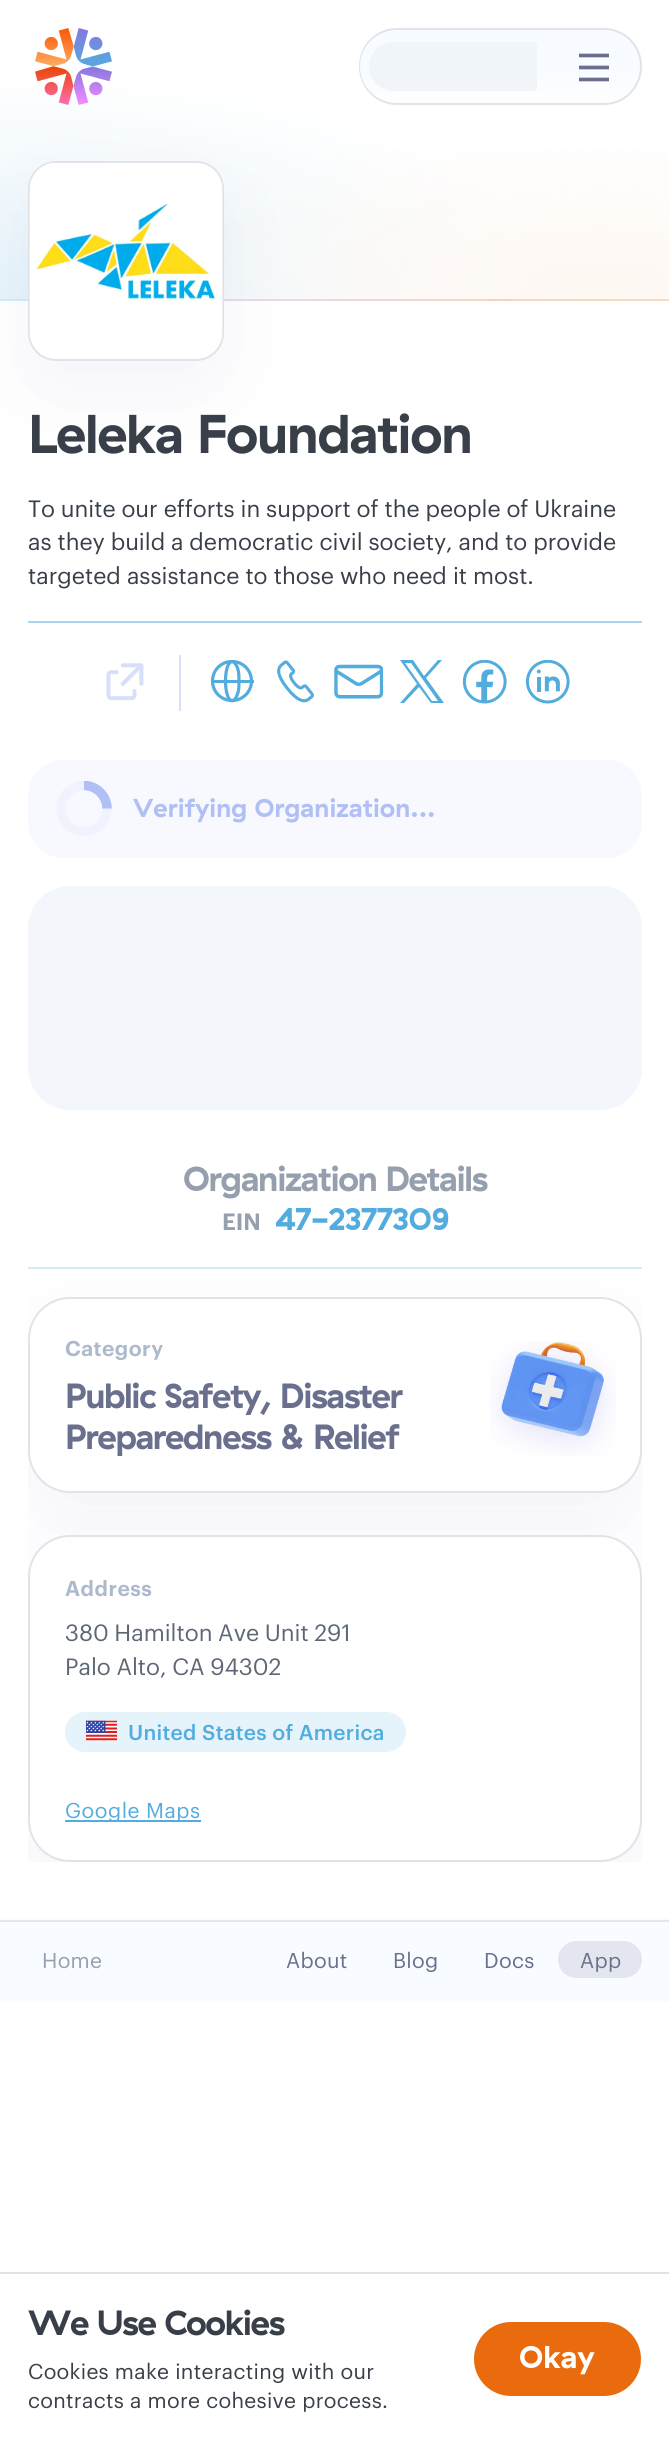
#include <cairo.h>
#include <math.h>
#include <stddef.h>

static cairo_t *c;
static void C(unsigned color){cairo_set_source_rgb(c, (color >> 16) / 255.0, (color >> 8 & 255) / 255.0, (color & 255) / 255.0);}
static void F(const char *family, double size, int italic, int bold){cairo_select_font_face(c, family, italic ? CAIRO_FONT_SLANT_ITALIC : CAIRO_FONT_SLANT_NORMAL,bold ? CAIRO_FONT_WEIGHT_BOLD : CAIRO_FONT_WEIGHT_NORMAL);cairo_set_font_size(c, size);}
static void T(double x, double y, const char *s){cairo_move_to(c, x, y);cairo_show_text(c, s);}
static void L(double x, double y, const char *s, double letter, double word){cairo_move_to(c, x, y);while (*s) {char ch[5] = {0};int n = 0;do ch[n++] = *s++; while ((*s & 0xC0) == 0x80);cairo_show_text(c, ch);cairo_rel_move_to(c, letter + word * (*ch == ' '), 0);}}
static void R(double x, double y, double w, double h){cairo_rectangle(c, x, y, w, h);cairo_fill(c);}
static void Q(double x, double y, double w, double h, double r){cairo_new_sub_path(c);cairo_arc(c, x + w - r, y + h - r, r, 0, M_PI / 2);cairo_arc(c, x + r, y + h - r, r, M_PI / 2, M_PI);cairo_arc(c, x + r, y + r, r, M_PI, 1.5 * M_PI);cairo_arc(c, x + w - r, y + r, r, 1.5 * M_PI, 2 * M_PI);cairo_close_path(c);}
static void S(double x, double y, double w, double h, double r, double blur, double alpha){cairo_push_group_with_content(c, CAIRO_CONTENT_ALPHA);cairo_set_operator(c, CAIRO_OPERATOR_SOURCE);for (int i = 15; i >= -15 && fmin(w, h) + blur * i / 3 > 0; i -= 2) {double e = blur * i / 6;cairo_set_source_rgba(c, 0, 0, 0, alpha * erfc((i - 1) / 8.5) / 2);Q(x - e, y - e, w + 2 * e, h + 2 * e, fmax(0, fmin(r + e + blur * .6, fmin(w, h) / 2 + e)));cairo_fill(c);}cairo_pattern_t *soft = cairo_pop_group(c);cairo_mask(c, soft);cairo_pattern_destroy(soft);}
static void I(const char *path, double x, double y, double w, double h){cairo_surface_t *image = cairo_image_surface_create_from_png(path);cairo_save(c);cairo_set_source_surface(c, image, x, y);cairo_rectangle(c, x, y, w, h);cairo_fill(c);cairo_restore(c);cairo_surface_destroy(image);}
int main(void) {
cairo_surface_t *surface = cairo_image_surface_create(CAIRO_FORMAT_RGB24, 669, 2442);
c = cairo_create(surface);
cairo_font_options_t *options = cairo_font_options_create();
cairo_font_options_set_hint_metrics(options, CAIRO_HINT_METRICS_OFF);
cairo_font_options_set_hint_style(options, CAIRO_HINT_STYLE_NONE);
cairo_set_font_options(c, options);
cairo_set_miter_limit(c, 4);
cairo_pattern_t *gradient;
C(0xffffff);
cairo_paint(c);
gradient = cairo_pattern_create_radial(0,0,0,0,0,1);
cairo_pattern_set_matrix(gradient, &(cairo_matrix_t){1.0 / 558, 0, 0, 1.0 / 233, -1.0 * 0 / 558, -1.0 * 299 / 233});
cairo_pattern_add_color_stop_rgba(gradient,0,0.898,0.953,0.98,1);
cairo_pattern_add_color_stop_rgba(gradient,1,1,1,1,1);
cairo_set_source(c,gradient);
cairo_pattern_destroy(gradient);
R(0,88,505,211);
gradient = cairo_pattern_create_linear(0,300,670,300);
cairo_pattern_add_color_stop_rgba(gradient,0,0.831,0.918,0.969,1);
cairo_pattern_add_color_stop_rgba(gradient,.26,0.878,0.867,0.969,1);
cairo_pattern_add_color_stop_rgba(gradient,.75,0.98,0.82,0.757,1);
cairo_pattern_add_color_stop_rgba(gradient,1,0.98,0.855,0.765,1);
cairo_set_source(c,gradient);
cairo_pattern_destroy(gradient);
R(0,299,669,2);
gradient = cairo_pattern_create_radial(0,0,0,0,0,1);
cairo_pattern_set_matrix(gradient, &(cairo_matrix_t){1.0 / 746, 0, 0, 1.0 / 245, -1.0 * 600 / 746, -1.0 * 285 / 245});
cairo_pattern_add_color_stop_rgba(gradient,.04,0.996,0.973,0.953,1);
cairo_pattern_add_color_stop_rgba(gradient,.66,0.996,0.973,0.953,0);
cairo_set_source(c,gradient);
cairo_pattern_destroy(gradient);
R(223,149,446,150);
C(0x4b338e);
S(28,193,196,199,28,37.5,.06);
I("1.png",35,28,77,77);
gradient = cairo_pattern_create_linear(501,28,501,105);
cairo_pattern_add_color_stop_rgba(gradient,0,0.973,0.984,1,1);
cairo_pattern_add_color_stop_rgba(gradient,.56,0.973,0.984,1,1);
cairo_pattern_add_color_stop_rgba(gradient,1,1,1,1,1);
cairo_set_source(c,gradient);
cairo_pattern_destroy(gradient);
Q(359,28,283,77,38.5);
cairo_fill(c);
C(0xe0e4e9);
cairo_set_fill_rule(c,CAIRO_FILL_RULE_EVEN_ODD);
cairo_new_path(c);
cairo_move_to(c,397,28);
cairo_line_to(c,551,28);
cairo_line_to(c,551,105);
cairo_line_to(c,397,105);
cairo_curve_to(c,376,105,359,88,359,66);
cairo_curve_to(c,359,45,376,28,397,28);
cairo_close_path(c);
cairo_move_to(c,397,30);
cairo_line_to(c,551,30);
cairo_line_to(c,551,103);
cairo_line_to(c,397,103);
cairo_curve_to(c,377,103,360,87,360,66);
cairo_curve_to(c,360,46,377,30,397,30);
cairo_close_path(c);
cairo_fill(c);
cairo_set_source_rgba(c,0.929,0.949,0.969,0.7);
cairo_new_path(c);
cairo_move_to(c,393.5,42);
cairo_line_to(c,533,42);
cairo_curve_to(c,535,42,537,44,537,46);
cairo_line_to(c,537,87);
cairo_curve_to(c,537,89,535,91,533,91);
cairo_line_to(c,393.5,91);
cairo_curve_to(c,380,91,369,80,369,66.5);
cairo_curve_to(c,369,53,380,42,393.5,42);
cairo_close_path(c);
cairo_fill(c);
C(0xe0e4e9);
cairo_new_path(c);
cairo_move_to(c,551,28);
cairo_line_to(c,604,28);
cairo_curve_to(c,625,28,642,45,642,66);
cairo_curve_to(c,642,88,625,105,604,105);
cairo_line_to(c,551,105);
cairo_close_path(c);
cairo_move_to(c,551,30);
cairo_line_to(c,604,30);
cairo_curve_to(c,624,30,640,46,640,66);
cairo_curve_to(c,640,87,624,103,604,103);
cairo_line_to(c,551,103);
cairo_close_path(c);
cairo_fill(c);
cairo_save(c);
cairo_set_fill_rule(c,CAIRO_FILL_RULE_WINDING);
cairo_rectangle(c,579,53,30,29);
cairo_clip(c);
cairo_new_path(c);
cairo_move_to(c,579,55.5);
cairo_line_to(c,609,55.5);
cairo_move_to(c,579,67.5);
cairo_line_to(c,609,67.5);
cairo_move_to(c,579,79.5);
cairo_line_to(c,609,79.5);
C(0x696f8c);
cairo_set_line_width(c,3.7);
cairo_set_line_cap(c,CAIRO_LINE_CAP_ROUND);
cairo_stroke(c);
cairo_restore(c);
C(0xffffff);
Q(29,162,194,198,27);
cairo_fill_preserve(c);
C(0xe0e4e9);
cairo_stroke(c);
I("2.png",29,163,194,185);
F("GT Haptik",54.5,0,1);
C(0x393f49);
L(28,453,"Leleka Foundation",-1.4,0);
C(0xa9d6ef);
R(28,621,614,2);
F("Graphik",23.1,0,0);
C(0x393f49);
L(28,517,"To unite our efforts in support of the people of Ukraine",0,-.25);
L(28,550,"as they build a democratic civil society, and to provide",0,-.25);
T(28,584,"targeted assistance to those who need it most.");
C(0xd8dffa);
R(179,655,2,56);
I("3.png",106,663,38,38);
cairo_arc(c,232,681,19.5,0,2 * M_PI);
C(0x53acde);
cairo_set_line_width(c,3.2);
cairo_stroke(c);
cairo_new_path(c);
cairo_move_to(c,239,681);
cairo_curve_to(c,239,685,239,689,238,692.5);
cairo_curve_to(c,236,699.5,231.5,705.5,227.5,695.5);
cairo_curve_to(c,226,691,225.5,686,225.5,681);
cairo_curve_to(c,225.5,676,226,671,227.5,666.5);
cairo_curve_to(c,231.5,657,236,663,238,669.5);
cairo_curve_to(c,239,673.5,239,677,239,681);
cairo_close_path(c);
cairo_stroke(c);
R(211,680,43,3);
I("4.png",277,660,37,43);
I("5.png",334,664,49,35);
cairo_set_fill_rule(c,CAIRO_FILL_RULE_WINDING);
cairo_new_path(c);
cairo_move_to(c,426,678);
cairo_line_to(c,442,660);
cairo_line_to(c,438,660);
cairo_line_to(c,424,676);
cairo_line_to(c,413,660);
cairo_line_to(c,400,660);
cairo_line_to(c,417,684);
cairo_line_to(c,400,703);
cairo_line_to(c,404,703);
cairo_line_to(c,419,687);
cairo_line_to(c,431,703);
cairo_line_to(c,444,703);
cairo_move_to(c,405,663);
cairo_line_to(c,411,663);
cairo_line_to(c,438,701);
cairo_line_to(c,432,701);
cairo_fill(c);
I("6.png",462,660,45,44);
I("7.png",525,660,45,44);
C(0xf7f9fe);
Q(28,760,614,98,35);
cairo_fill(c);
cairo_save(c);
cairo_rectangle(c,56,781,56,56);
cairo_clip(c);
cairo_arc(c,84,808.5,23,0,2 * M_PI);
C(0xf0f3fd);
cairo_set_line_width(c,9.5);
cairo_stroke(c);
cairo_new_path(c);
cairo_move_to(c,107,808.5);
cairo_curve_to(c,107,796,96.5,785.5,84,785.5);
C(0xb1bff5);
cairo_stroke(c);
cairo_restore(c);
F("GT Haptik",25.9,0,1);
C(0xb1bff5);
T(133,817,"Verifying Organization...");
C(0xf3f6fa);
Q(28,886,614,224,42);
cairo_fill(c);
C(0xd4eaf7);
R(28,1267,614,2);
F("GT Haptik",35,0,1);
C(0x969fad);
L(183,1191,"Organization Details",-1.4,0);
F("Graphik SemiBold",23.1,0,0);
T(222,1230,"EIN");
F("GT Haptik",31.5,0,1);
C(0x53acde);
L(275,1230,"47-2377309",-1.4,0);
cairo_save(c);
cairo_rectangle(c,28,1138,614,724);
cairo_clip(c);
C(0x4b338e);
S(28,1328,614,196,42,37.5,.06);
cairo_restore(c);
C(0xffffff);
Q(29,1298,612,194,41);
cairo_fill_preserve(c);
C(0xe0e4e9);
cairo_set_line_width(c,2);
cairo_stroke(c);
F("Graphik SemiBold",21,0,0);
C(0xadbacc);
L(65,1356,"Category",.5,0);
cairo_save(c);
cairo_rectangle(c,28,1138,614,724);
cairo_clip(c);
C(0x4b338e);
S(28,1566,614,328,42,37.5,.06);
cairo_restore(c);
I("8.png",490,1341,126,115);
F("GT Haptik",35,0,1);
C(0x696f8c);
L(65,1408,"Public Safety, Disaster",-1.4,0);
L(65,1449,"Preparedness & Relief",-1.4,0);
C(0xffffff);
Q(29,1536,612,325,41);
cairo_fill_preserve(c);
C(0xe0e4e9);
cairo_stroke(c);
F("Graphik SemiBold",21,0,0);
C(0xadbacc);
L(65,1596,"Address",.5,0);
F("Graphik",23.1,0,0);
C(0x5e6775);
L(65,1641,"380 Hamilton Ave Unit 291",0,-.5);
L(65,1675,"Palo Alto, CA 94302",0,-.5);
C(0xe5f3fa);
Q(65,1712,341,40,20);
cairo_fill(c);
I("9.png",86,1720,31,21);
F("Graphik Medium",21,0,0);
C(0x53acde);
L(128,1740,"United States of America",.3,0);
R(65,1820,136,2);
F("Graphik",21,0,0);
L(65,1818,"Google Maps",.5,0);
C(0xf8fbff);
R(0,1918,669,84);
C(0xe3e6ee);
R(0,1920,669,2);
C(0x969fad);
L(42,1968,"Home",.3,0);
C(0x696f8c);
L(286,1968,"About",.3,0);
L(393,1968,"Blog",.3,0);
L(484,1968,"Docs",.3,0);
C(0xe3e6ee);
Q(558,1941,84,37,18.5);
cairo_fill(c);
C(0x696f8c);
L(580,1968,"App",.3,0);
C(0xe0e4e9);
R(0,2272,669,2);
F("GT Haptik",35,0,1);
C(0x393f49);
L(28,2335,"We Use Cookies",-1.4,0);
F("Graphik",21,0,0);
L(28,2379,"Cookies make interacting with our",.3,0);
L(28,2408,"contracts a more cohesive process.",.3,0);
C(0xea6b0e);
Q(476,2324,163,70,35);
cairo_fill_preserve(c);
cairo_set_line_width(c,4);
cairo_stroke(c);
F("GT Haptik",31.5,0,1);
C(0xffffff);
T(519,2368,"Okay");
cairo_surface_write_to_png(surface, "o.png");
cairo_font_options_destroy(options);
cairo_destroy(c);
cairo_surface_destroy(surface);
return 0;
}
